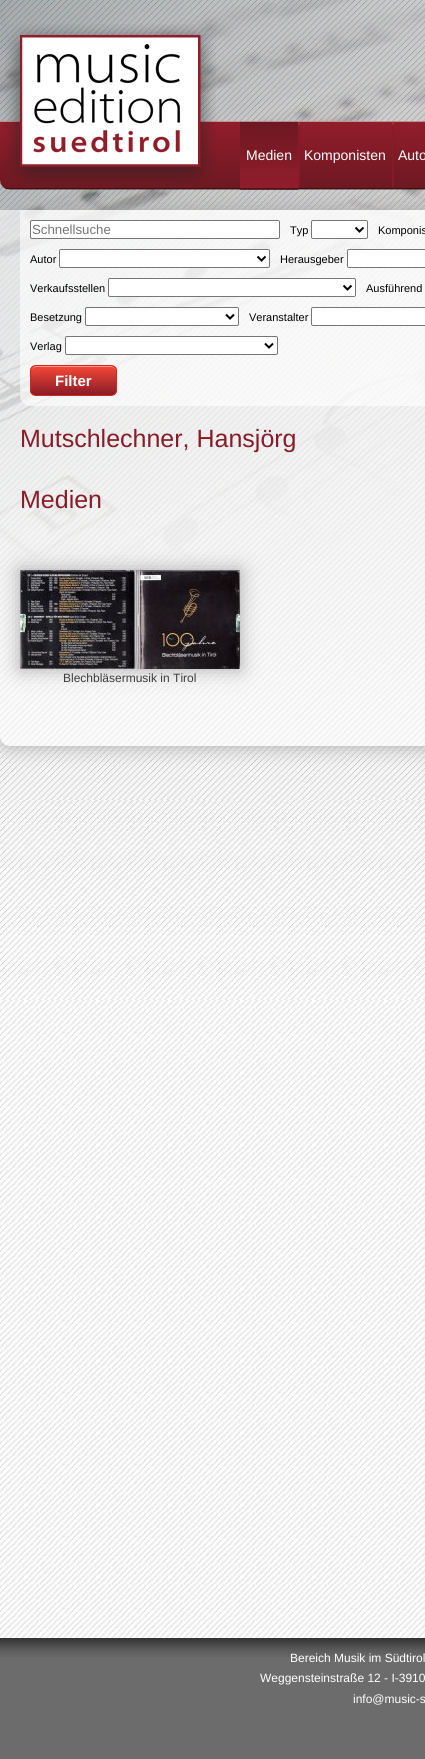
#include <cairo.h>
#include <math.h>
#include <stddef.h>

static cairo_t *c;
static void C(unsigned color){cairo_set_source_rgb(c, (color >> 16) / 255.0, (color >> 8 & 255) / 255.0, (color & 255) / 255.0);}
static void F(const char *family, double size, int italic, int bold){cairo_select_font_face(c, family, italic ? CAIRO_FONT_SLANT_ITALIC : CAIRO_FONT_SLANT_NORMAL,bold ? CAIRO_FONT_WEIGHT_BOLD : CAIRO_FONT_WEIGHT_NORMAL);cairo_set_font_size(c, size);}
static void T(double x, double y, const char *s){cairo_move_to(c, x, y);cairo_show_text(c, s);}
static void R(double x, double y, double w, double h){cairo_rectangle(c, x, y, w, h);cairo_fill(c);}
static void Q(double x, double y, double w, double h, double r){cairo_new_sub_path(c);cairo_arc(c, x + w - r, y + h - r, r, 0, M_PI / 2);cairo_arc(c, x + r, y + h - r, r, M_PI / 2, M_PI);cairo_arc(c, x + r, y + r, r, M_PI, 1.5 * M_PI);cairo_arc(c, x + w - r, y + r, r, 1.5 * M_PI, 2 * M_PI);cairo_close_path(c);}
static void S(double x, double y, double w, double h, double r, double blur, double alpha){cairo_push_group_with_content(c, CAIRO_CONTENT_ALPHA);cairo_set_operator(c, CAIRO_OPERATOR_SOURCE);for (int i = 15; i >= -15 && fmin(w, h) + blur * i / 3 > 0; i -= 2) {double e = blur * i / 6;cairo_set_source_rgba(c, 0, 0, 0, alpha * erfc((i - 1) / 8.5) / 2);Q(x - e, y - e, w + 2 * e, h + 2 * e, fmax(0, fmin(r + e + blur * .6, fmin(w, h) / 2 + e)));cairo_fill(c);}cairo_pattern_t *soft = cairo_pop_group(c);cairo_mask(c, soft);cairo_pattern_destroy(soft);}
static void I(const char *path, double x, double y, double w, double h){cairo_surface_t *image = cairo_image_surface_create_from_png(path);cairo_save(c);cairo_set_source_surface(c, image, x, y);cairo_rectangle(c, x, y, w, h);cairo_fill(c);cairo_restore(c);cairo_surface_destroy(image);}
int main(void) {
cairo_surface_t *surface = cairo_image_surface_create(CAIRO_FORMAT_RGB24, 425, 1759);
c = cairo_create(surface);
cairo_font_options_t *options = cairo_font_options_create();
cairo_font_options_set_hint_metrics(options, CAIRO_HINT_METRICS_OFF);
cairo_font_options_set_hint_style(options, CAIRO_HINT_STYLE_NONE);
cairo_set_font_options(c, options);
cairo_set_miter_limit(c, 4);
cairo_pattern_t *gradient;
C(0xffffff);
cairo_paint(c);
I("1.png",0,1000,425,638);
I("2.png",0,800,425,200);
I("3.png",0,0,425,800);
cairo_save(c);
cairo_set_fill_rule(c,CAIRO_FILL_RULE_EVEN_ODD);
cairo_new_path(c);
cairo_move_to(c,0,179);
cairo_line_to(c,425,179);
cairo_line_to(c,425,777);
cairo_line_to(c,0,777);
cairo_close_path(c);
cairo_move_to(c,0,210);
cairo_line_to(c,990,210);
cairo_line_to(c,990,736);
cairo_curve_to(c,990,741.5,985.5,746,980,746);
cairo_line_to(c,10,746);
cairo_curve_to(c,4.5,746,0,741.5,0,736);
cairo_close_path(c);
cairo_clip(c);
C(0xaaaaaa);
S(0,210,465,536,10,10,1);
cairo_restore(c);
I("5.png",0,121,425,69);
I("4.png",4,24,212,161);
I("6.png",240,121,58,69);
F("Liberation Sans",14,0,0);
C(0xffffff);
T(246,160,"Medien");
I("7.png",298,121,2,69);
T(304,160,"Komponisten");
I("7.png",392,121,2,69);
T(398,160,"Auto");
I("8.png",0,210,425,536);
I("9.png",20,210,405,196);
Q(30.5,220.5,249,18,1.5);
cairo_fill_preserve(c);
C(0x767676);
cairo_set_line_width(c,1);
cairo_stroke(c);
F("Liberation Sans",13.25,0,0);
C(0x757575);
T(32,234,"Schnellsuche");
F("Liberation Sans",11,0,0);
C(0x000000);
T(290,234,"Typ");
C(0xffffff);
Q(311.5,220.5,56,18,1.5);
cairo_fill_preserve(c);
C(0x767676);
cairo_stroke(c);
cairo_new_path(c);
cairo_move_to(c,355.5,227.5);
cairo_line_to(c,359.5,231.5);
cairo_line_to(c,363.5,227.5);
C(0x000000);
cairo_set_line_width(c,2);
cairo_stroke(c);
T(378,234,"Komponis");
T(30,263,"Autor");
C(0xffffff);
Q(59.5,249.5,210,18,1.5);
cairo_fill_preserve(c);
C(0x767676);
cairo_set_line_width(c,1);
cairo_stroke(c);
cairo_new_path(c);
cairo_move_to(c,257.5,256.5);
cairo_line_to(c,261.5,260.5);
cairo_line_to(c,265.5,256.5);
C(0x000000);
cairo_set_line_width(c,2);
cairo_stroke(c);
T(280,263,"Herausgeber");
C(0xffffff);
Q(347.5,249.5,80,18,1.5);
cairo_fill_preserve(c);
C(0x767676);
cairo_set_line_width(c,1);
cairo_stroke(c);
C(0x000000);
T(30,292,"Verkaufsstellen");
C(0xffffff);
Q(108.5,278.5,247,18,1.5);
cairo_fill_preserve(c);
C(0x767676);
cairo_stroke(c);
cairo_new_path(c);
cairo_move_to(c,343.5,285.5);
cairo_line_to(c,347.5,289.5);
cairo_line_to(c,351.5,285.5);
C(0x000000);
cairo_set_line_width(c,2);
cairo_stroke(c);
T(366,292,"Ausführend");
T(30,321,"Besetzung");
C(0xffffff);
Q(85.5,307.5,153,18,1.5);
cairo_fill_preserve(c);
C(0x767676);
cairo_set_line_width(c,1);
cairo_stroke(c);
cairo_new_path(c);
cairo_move_to(c,226,314.5);
cairo_line_to(c,230,318.5);
cairo_line_to(c,234,314.5);
C(0x000000);
cairo_set_line_width(c,2);
cairo_stroke(c);
T(249,321,"Veranstalter");
C(0xffffff);
Q(311.5,307.5,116,18,1.5);
cairo_fill_preserve(c);
C(0x767676);
cairo_set_line_width(c,1);
cairo_stroke(c);
C(0x000000);
T(30,350,"Verlag");
C(0xffffff);
Q(65.5,336.5,212,18,1.5);
cairo_fill_preserve(c);
C(0x767676);
cairo_stroke(c);
cairo_new_path(c);
cairo_move_to(c,265,343.5);
cairo_line_to(c,269,347.5);
cairo_line_to(c,273,343.5);
C(0x000000);
cairo_set_line_width(c,2);
cairo_stroke(c);
cairo_save(c);
Q(30,365,87,31,6);
cairo_clip(c);
gradient = cairo_pattern_create_linear(31,366,31,395);
cairo_pattern_add_color_stop_rgba(gradient,.05,0.949,0.271,0.216,1);
cairo_pattern_add_color_stop_rgba(gradient,1,0.533,0.11,0.157,1);
cairo_set_source(c,gradient);
cairo_pattern_destroy(gradient);
R(30,366,87,29);
cairo_restore(c);
C(0xf5978e);
cairo_new_path(c);
cairo_move_to(c,36,367);
cairo_line_to(c,111,367);
cairo_curve_to(c,114,367,116,369,116,372);
cairo_curve_to(c,116,363,104,366,98,366);
cairo_line_to(c,48,366);
cairo_curve_to(c,43,366,31,363,31,372);
cairo_curve_to(c,31,369,33,367,36,367);
cairo_close_path(c);
cairo_fill(c);
Q(30.5,365.5,86,30,5.5);
C(0xd02718);
cairo_set_line_width(c,1);
cairo_stroke(c);
F("Liberation Sans",15,0,1);
C(0xffffff);
T(55,386,"Filter");
F("Liberation Sans",25,0,0);
C(0x881c28);
T(20,447,"Mutschlechner, Hansjörg");
T(20,508,"Medien");
C(0xaaaaaa);
S(20,570,220,99,0,10,1);
I("10.png",20,570,220,99);
F("Liberation Sans",12,0,0);
C(0x3d3d3d);
T(63,682,"Blechbläsermusik in Tirol");
C(0x6c6c6c);
R(0,1657,425,102);
I("11.png",0,1638,425,19);
C(0xffffff);
T(290,1662,"Bereich Musik im Südtirol");
T(260,1682,"Weggensteinstraße 12 - I-3910");
T(353,1703,"info@music-s");
cairo_surface_write_to_png(surface, "o.png");
cairo_font_options_destroy(options);
cairo_destroy(c);
cairo_surface_destroy(surface);
return 0;
}
